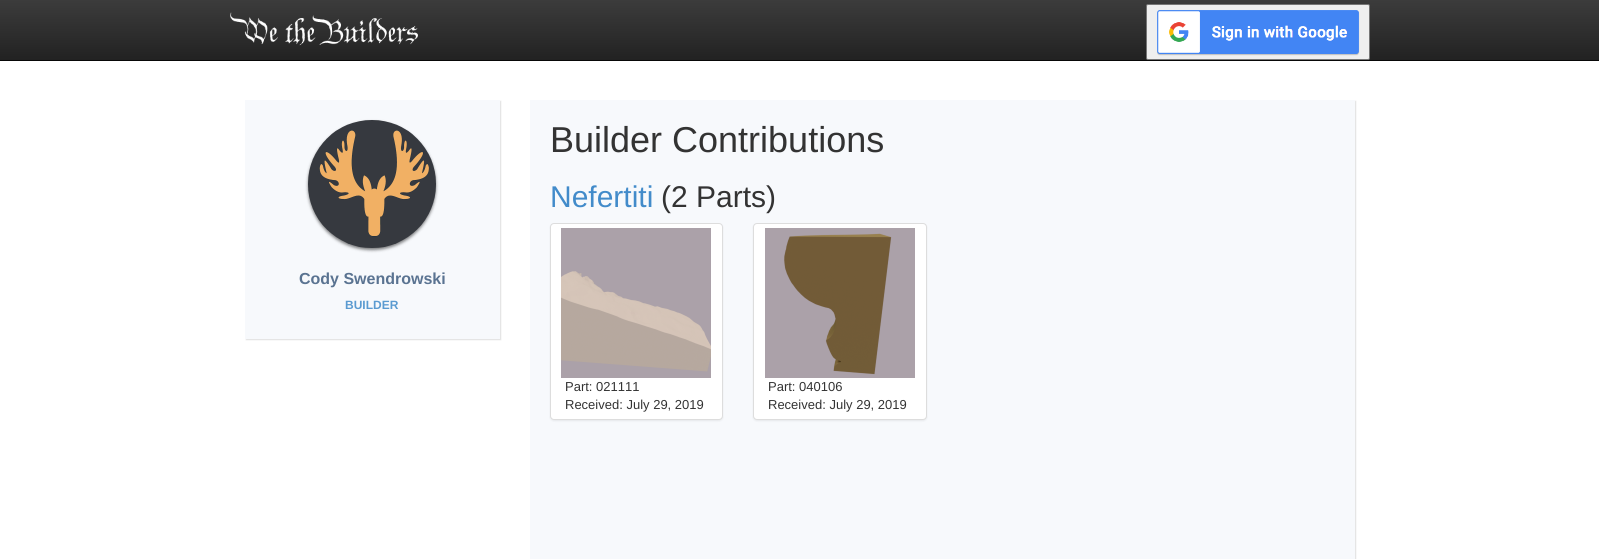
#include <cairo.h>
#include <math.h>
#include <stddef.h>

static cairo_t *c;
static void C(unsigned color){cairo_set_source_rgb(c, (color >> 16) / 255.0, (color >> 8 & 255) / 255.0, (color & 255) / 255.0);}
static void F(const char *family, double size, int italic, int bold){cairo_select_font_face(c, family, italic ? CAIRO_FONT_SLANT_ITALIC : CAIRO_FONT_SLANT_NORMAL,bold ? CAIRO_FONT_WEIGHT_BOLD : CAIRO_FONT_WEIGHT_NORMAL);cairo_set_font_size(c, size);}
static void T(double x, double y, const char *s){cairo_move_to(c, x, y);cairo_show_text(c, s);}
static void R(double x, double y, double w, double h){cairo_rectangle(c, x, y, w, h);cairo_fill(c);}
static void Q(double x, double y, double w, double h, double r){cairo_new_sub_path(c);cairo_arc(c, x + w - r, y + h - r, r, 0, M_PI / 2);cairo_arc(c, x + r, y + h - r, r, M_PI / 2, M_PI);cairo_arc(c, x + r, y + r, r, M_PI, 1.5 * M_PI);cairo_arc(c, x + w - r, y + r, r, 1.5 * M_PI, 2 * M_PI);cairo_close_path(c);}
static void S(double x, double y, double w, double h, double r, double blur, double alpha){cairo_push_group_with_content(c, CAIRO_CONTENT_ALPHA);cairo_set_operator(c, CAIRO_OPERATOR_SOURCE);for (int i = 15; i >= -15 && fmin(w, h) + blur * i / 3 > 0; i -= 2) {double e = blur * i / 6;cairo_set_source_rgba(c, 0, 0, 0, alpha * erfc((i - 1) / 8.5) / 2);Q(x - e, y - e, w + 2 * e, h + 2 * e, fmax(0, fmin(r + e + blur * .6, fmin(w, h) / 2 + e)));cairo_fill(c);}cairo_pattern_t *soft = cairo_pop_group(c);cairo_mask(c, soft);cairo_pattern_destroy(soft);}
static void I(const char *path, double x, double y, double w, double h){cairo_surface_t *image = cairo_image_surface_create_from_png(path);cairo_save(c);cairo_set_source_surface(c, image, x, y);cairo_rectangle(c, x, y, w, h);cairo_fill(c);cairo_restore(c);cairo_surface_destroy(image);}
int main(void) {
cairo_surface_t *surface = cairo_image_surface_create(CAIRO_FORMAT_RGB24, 1599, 559);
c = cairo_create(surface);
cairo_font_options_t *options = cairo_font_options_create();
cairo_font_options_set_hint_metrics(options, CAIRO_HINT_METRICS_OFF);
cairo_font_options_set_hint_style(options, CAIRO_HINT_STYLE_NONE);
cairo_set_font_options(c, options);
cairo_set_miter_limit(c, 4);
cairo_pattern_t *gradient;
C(0xffffff);
cairo_paint(c);
gradient = cairo_pattern_create_linear(800,0,800,60);
cairo_pattern_add_color_stop_rgba(gradient,0,0.235,0.235,0.235,1);
cairo_pattern_add_color_stop_rgba(gradient,1,0.133,0.133,0.133,1);
cairo_set_source(c,gradient);
cairo_pattern_destroy(gradient);
R(0,0,1599,60);
C(0x080808);
R(0,60,1599,1);
I("1.png",230,12,188,34);
C(0xefefef);
Q(1146.5,4.5,223,55,1.5);
cairo_fill_preserve(c);
C(0x767676);
cairo_set_line_width(c,1);
cairo_stroke(c);
I("2.png",1157,10,203,46);
C(0x000000);
S(246,101,255,239,0,.5,.12);
C(0xf7f9fc);
R(245,100,255,239);
C(0x000000);
S(308,122,128,128,64,1.5,.5);
I("3.png",308,120,128,128);
F("Liberation Sans",16,0,1);
C(0x5a7391);
T(299,284,"Cody Swendrowski");
F("Liberation Sans",12,0,1);
C(0x5b9bd1);
T(345,309,"BUILDER");
C(0x000000);
S(531,101,825,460,0,.5,.12);
C(0xf7f9fc);
R(530,100,825,459);
F("Liberation Sans",36,0,0);
C(0x333333);
T(550,152,"Builder Contributions");
F("Liberation Sans",30,0,0);
C(0x428bca);
T(550,207,"Nefertiti");
C(0x333333);
T(661,207,"(2 Parts)");
C(0x000000);
S(550,224,173,197,4,1,.07);
C(0xffffff);
Q(550.5,223.5,172,196,3.5);
cairo_fill_preserve(c);
C(0xdddddd);
cairo_stroke(c);
I("4.png",561,228,150,150);
F("Liberation Sans",13,0,0);
C(0x333333);
T(565,391,"Part: 021111");
T(565,409,"Received: July 29, 2019");
C(0x000000);
S(753,224,174,197,4,1,.07);
C(0xffffff);
Q(753.5,223.5,173,196,3.5);
cairo_fill_preserve(c);
C(0xdddddd);
cairo_stroke(c);
I("5.png",765,228,150,150);
C(0x333333);
T(768,391,"Part: 040106");
T(768,409,"Received: July 29, 2019");
cairo_surface_write_to_png(surface, "o.png");
cairo_font_options_destroy(options);
cairo_destroy(c);
cairo_surface_destroy(surface);
return 0;
}
